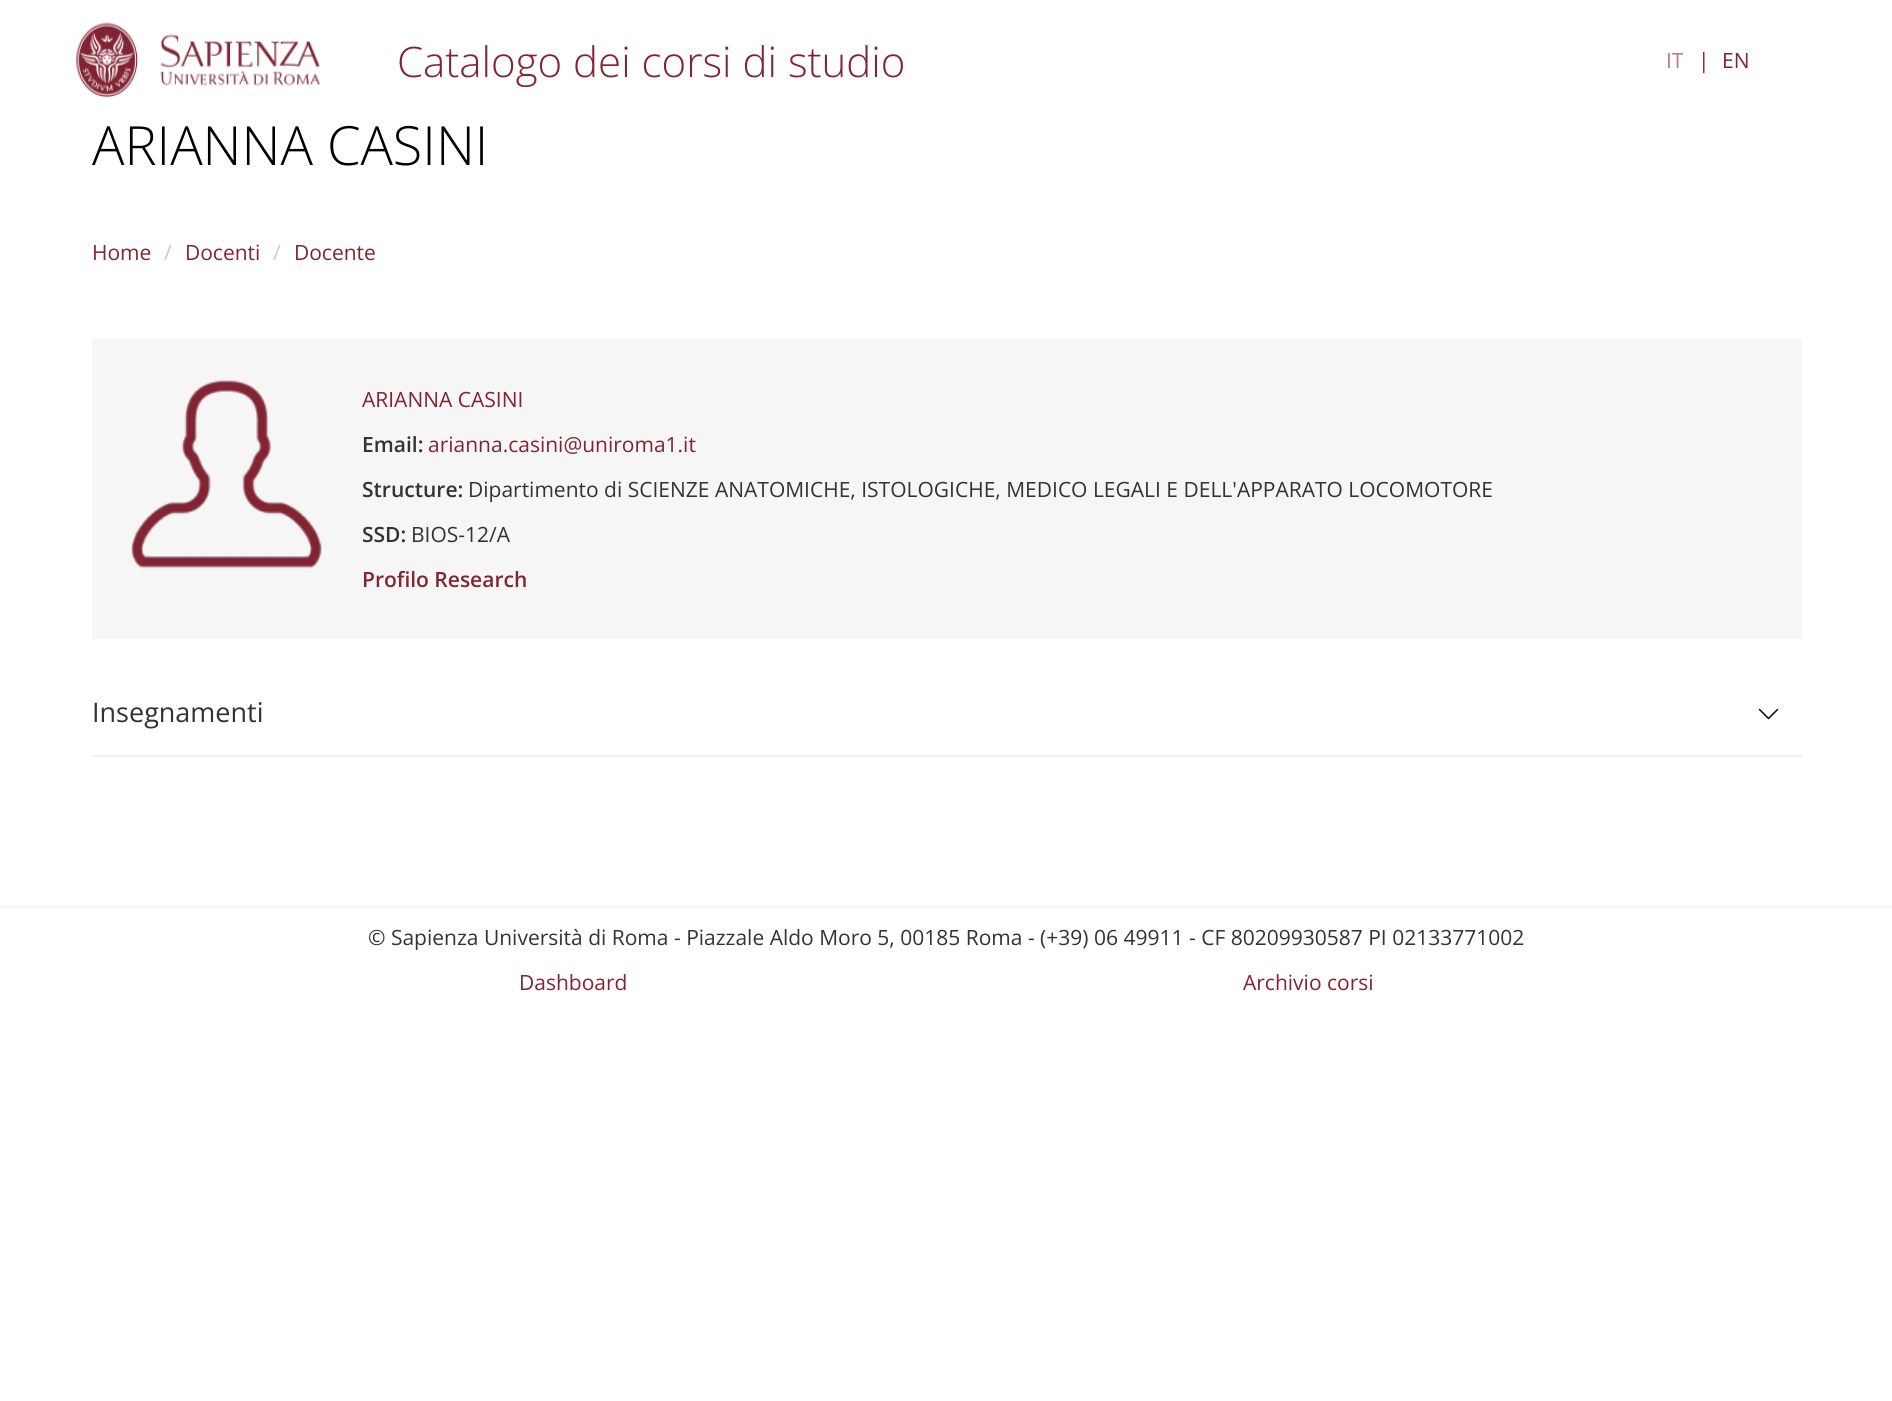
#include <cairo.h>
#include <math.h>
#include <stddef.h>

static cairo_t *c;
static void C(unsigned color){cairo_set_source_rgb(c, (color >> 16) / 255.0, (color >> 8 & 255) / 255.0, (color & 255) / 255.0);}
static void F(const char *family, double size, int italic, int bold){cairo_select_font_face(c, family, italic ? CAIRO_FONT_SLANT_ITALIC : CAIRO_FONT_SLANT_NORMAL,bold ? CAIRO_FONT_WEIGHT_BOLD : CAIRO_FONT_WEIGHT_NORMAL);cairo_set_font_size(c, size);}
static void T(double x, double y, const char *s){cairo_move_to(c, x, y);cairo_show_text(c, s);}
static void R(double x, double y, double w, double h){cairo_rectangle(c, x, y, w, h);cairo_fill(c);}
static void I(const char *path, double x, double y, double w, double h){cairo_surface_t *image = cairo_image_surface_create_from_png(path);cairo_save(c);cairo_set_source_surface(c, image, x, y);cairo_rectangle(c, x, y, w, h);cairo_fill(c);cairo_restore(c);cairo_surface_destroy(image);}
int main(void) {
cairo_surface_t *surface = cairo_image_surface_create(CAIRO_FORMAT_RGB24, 1892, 1401);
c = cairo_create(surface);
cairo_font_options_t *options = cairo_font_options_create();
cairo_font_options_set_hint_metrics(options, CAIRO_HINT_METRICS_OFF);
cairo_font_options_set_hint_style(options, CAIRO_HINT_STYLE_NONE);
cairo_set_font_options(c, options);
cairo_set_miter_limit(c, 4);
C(0xffffff);
cairo_paint(c);
I("1.png",76,22,244,76);
F("Open Sans Light",42,0,0);
C(0x822433);
T(397,77,"Catalogo dei corsi di studio");
F("Open Sans",21,0,0);
C(0xb47c85);
T(1666,68,"IT");
C(0x822433);
T(1698,68,"|");
T(1722,68,"EN");
F("Open Sans Light",54,0,0);
C(0x000000);
T(92,165,"ARIANNA CASINI");
F("Open Sans",21,0,0);
C(0x822433);
T(92,260,"Home");
C(0xcccccc);
T(164,260,"/");
C(0x822433);
T(185,260,"Docenti");
C(0xcccccc);
T(273,260,"/");
C(0x822433);
T(294,260,"Docente");
C(0xf6f6f6);
R(92,339,1710,300);
I("2.png",131,379,191,190);
C(0x822433);
T(362,407,"ARIANNA CASINI");
F("Open Sans SemiBold",21,0,0);
C(0x333333);
T(362,452,"Email:");
F("Open Sans",21,0,0);
C(0x822433);
T(428,452,"arianna.casini@uniroma1.it");
F("Open Sans SemiBold",21,0,0);
C(0x333333);
T(362,497,"Structure:");
F("Open Sans",21,0,0);
T(468,497,"Dipartimento di SCIENZE ANATOMICHE, ISTOLOGICHE, MEDICO LEGALI E DELL'APPARATO LOCOMOTORE");
F("Open Sans SemiBold",21,0,0);
T(362,542,"SSD:");
F("Open Sans",21,0,0);
T(411,542,"BIOS-12/A");
F("Open Sans SemiBold",21,0,0);
C(0x822433);
T(362,587,"Profilo Research");
C(0xf2f2f2);
R(92,755,1710,2);
F("Open Sans",27,0,0);
C(0x333333);
T(92,722,"Insegnamenti");
I("3.png",1758,708,21,12);
C(0xf6f6f6);
R(0,906,1892,2);
F("Open Sans",21,0,0);
C(0x333333);
T(368,945,"© Sapienza Università di Roma - Piazzale Aldo Moro 5, 00185 Roma - (+39) 06 49911 - CF 80209930587 PI 02133771002");
C(0x822433);
T(519,990,"Dashboard");
T(1243,990,"Archivio corsi");
cairo_surface_write_to_png(surface, "o.png");
cairo_font_options_destroy(options);
cairo_destroy(c);
cairo_surface_destroy(surface);
return 0;
}
